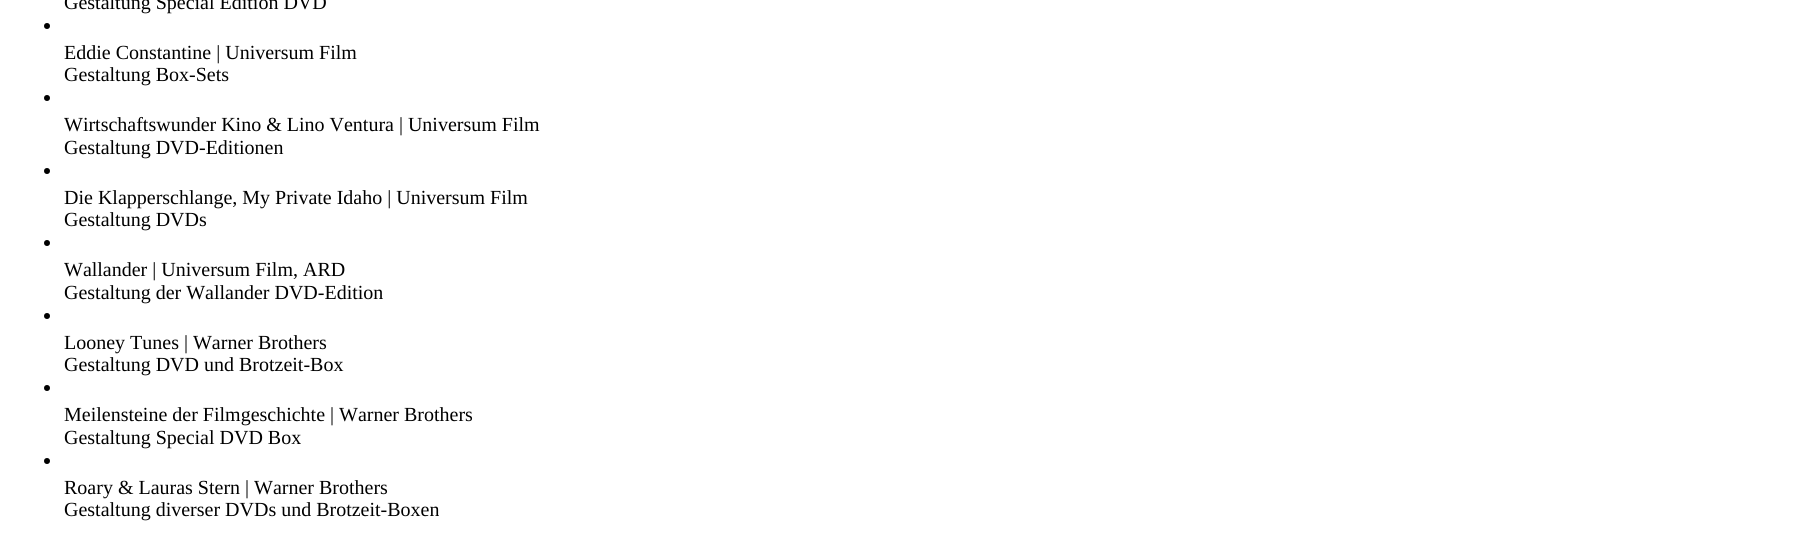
#include <cairo.h>
#include <math.h>
#include <stddef.h>

static cairo_t *c;
static void C(unsigned color){cairo_set_source_rgb(c, (color >> 16) / 255.0, (color >> 8 & 255) / 255.0, (color & 255) / 255.0);}
static void F(const char *family, double size, int italic, int bold){cairo_select_font_face(c, family, italic ? CAIRO_FONT_SLANT_ITALIC : CAIRO_FONT_SLANT_NORMAL,bold ? CAIRO_FONT_WEIGHT_BOLD : CAIRO_FONT_WEIGHT_NORMAL);cairo_set_font_size(c, size);}
static void T(double x, double y, const char *s){cairo_move_to(c, x, y);cairo_show_text(c, s);}
int main(void) {
cairo_surface_t *surface = cairo_image_surface_create(CAIRO_FORMAT_RGB24, 1795, 543);
c = cairo_create(surface);
cairo_font_options_t *options = cairo_font_options_create();
cairo_font_options_set_hint_metrics(options, CAIRO_HINT_METRICS_OFF);
cairo_font_options_set_hint_style(options, CAIRO_HINT_STYLE_NONE);
cairo_set_font_options(c, options);
cairo_set_miter_limit(c, 4);
C(0xffffff);
cairo_paint(c);
F("Liberation Serif",20,0,0);
C(0x000000);
T(64,9,"Gestaltung Special Edition DVD");
cairo_new_path(c);
cairo_arc(c,47,26,3,0,2 * M_PI);
cairo_fill(c);
T(64,59,"Eddie Constantine | Universum Film");
T(64,81,"Gestaltung Box-Sets");
cairo_new_path(c);
cairo_arc(c,47,98,3,0,2 * M_PI);
cairo_fill(c);
T(64,131,"Wirtschaftswunder Kino & Lino Ventura | Universum Film");
T(64,154,"Gestaltung DVD-Editionen");
cairo_new_path(c);
cairo_arc(c,47,171,3,0,2 * M_PI);
cairo_fill(c);
T(64,204,"Die Klapperschlange, My Private Idaho | Universum Film");
T(64,226,"Gestaltung DVDs");
cairo_new_path(c);
cairo_arc(c,47,243,3,0,2 * M_PI);
cairo_fill(c);
T(64,276,"Wallander | Universum Film, ARD");
T(64,299,"Gestaltung der Wallander DVD-Edition");
cairo_new_path(c);
cairo_arc(c,47,316,3,0,2 * M_PI);
cairo_fill(c);
T(64,349,"Looney Tunes | Warner Brothers");
T(64,371,"Gestaltung DVD und Brotzeit-Box");
cairo_new_path(c);
cairo_arc(c,47,388,3,0,2 * M_PI);
cairo_fill(c);
T(64,421,"Meilensteine der Filmgeschichte | Warner Brothers");
T(64,444,"Gestaltung Special DVD Box");
cairo_new_path(c);
cairo_arc(c,47,461,3,0,2 * M_PI);
cairo_fill(c);
T(64,494,"Roary & Lauras Stern | Warner Brothers");
T(64,516,"Gestaltung diverser DVDs und Brotzeit-Boxen");
cairo_surface_write_to_png(surface, "o.png");
cairo_font_options_destroy(options);
cairo_destroy(c);
cairo_surface_destroy(surface);
return 0;
}
